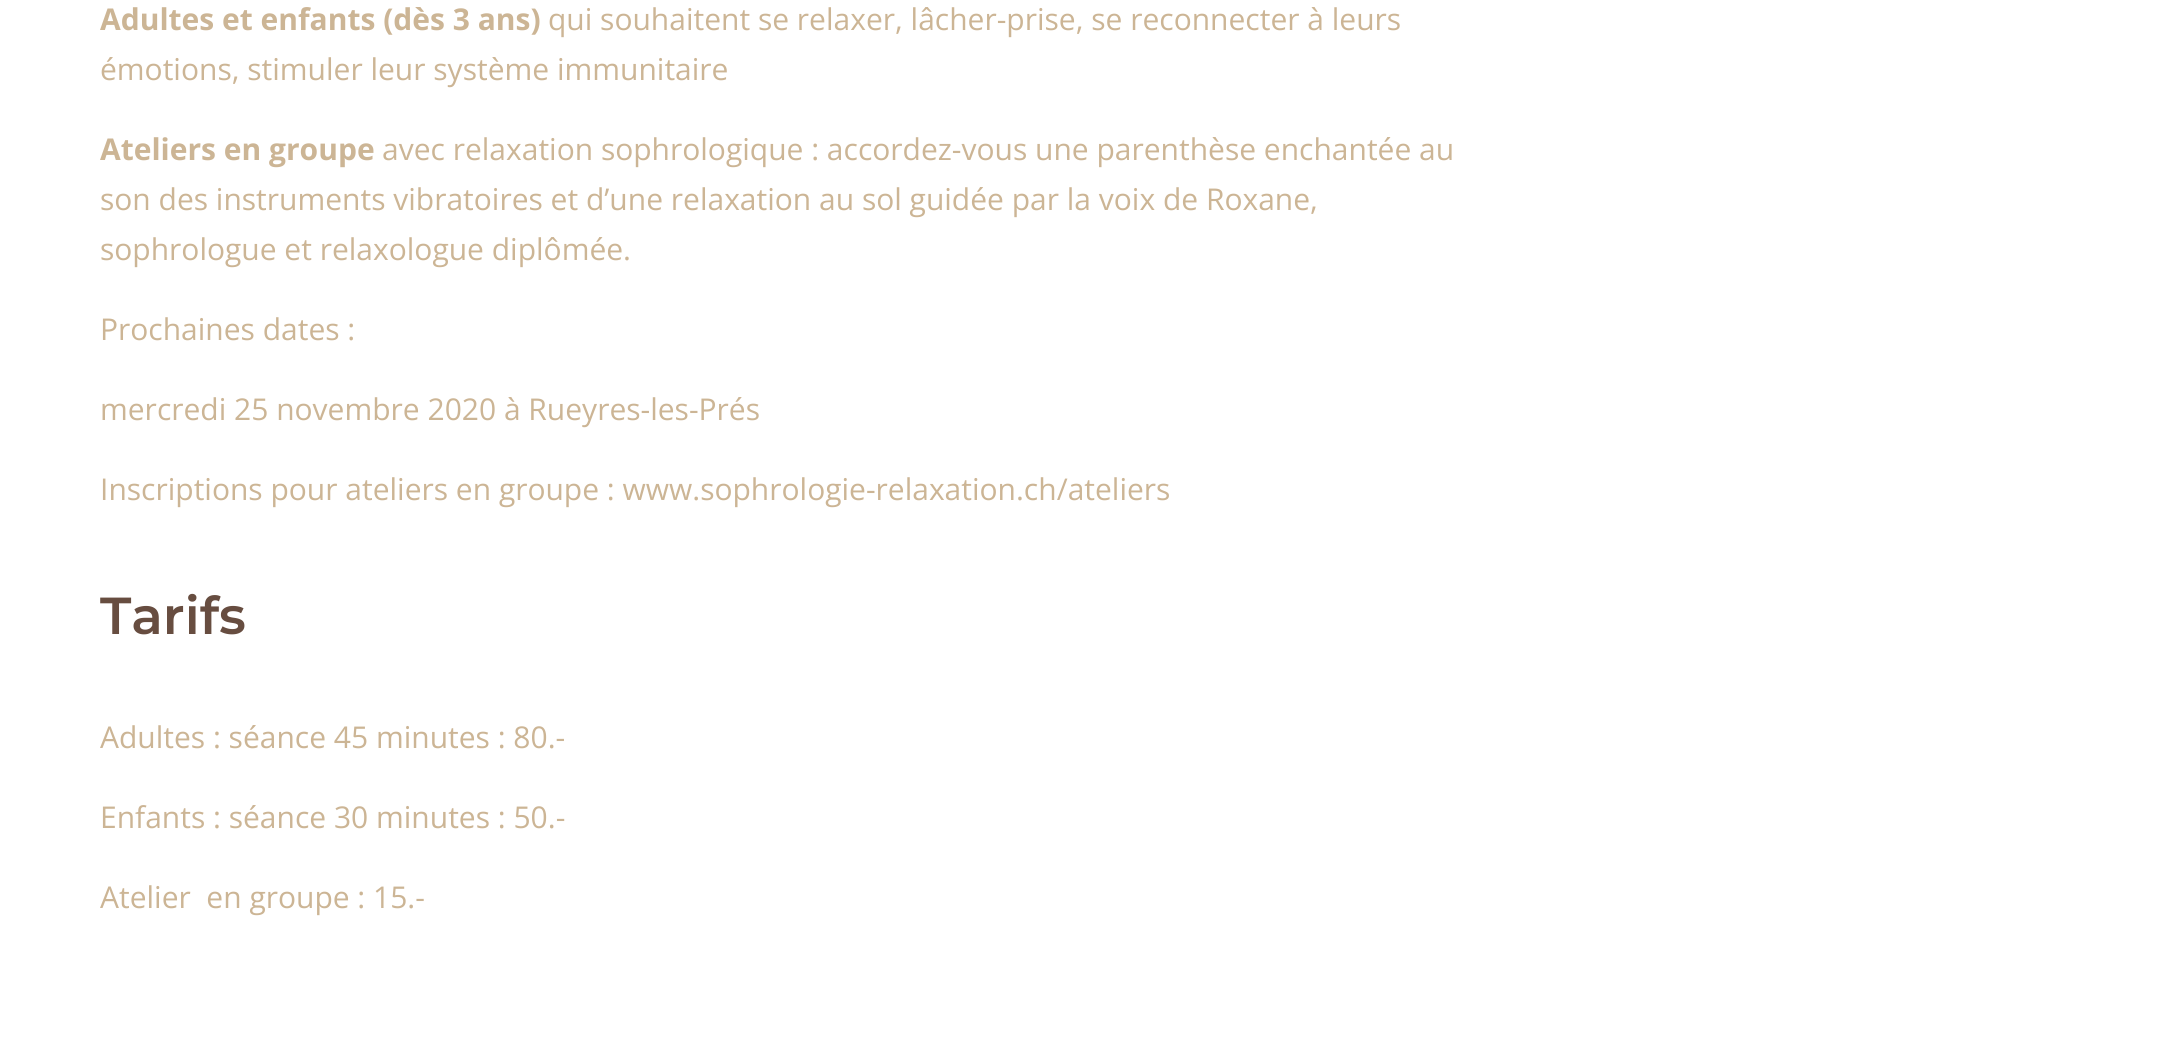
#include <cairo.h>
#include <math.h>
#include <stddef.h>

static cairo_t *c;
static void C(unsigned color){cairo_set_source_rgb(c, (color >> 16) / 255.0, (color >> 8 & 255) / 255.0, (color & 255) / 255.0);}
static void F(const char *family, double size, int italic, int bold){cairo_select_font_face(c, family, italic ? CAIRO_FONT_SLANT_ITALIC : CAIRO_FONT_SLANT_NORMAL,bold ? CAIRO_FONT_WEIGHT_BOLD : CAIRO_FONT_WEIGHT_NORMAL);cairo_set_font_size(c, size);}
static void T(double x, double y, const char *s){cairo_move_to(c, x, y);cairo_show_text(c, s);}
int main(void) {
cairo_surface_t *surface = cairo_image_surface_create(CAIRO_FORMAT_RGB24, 2162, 1048);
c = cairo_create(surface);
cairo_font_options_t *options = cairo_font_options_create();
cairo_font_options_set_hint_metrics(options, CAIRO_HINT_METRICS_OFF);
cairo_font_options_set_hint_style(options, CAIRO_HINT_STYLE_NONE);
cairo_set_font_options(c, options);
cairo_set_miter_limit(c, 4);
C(0xffffff);
cairo_paint(c);
F("Open Sans",30,0,1);
C(0xccb595);
T(100,30,"Adultes et enfants (dès 3 ans)");
F("Open Sans",30,0,0);
T(548,30,"qui souhaitent se relaxer, lâcher-prise, se reconnecter à leurs");
T(100,80,"émotions, stimuler leur système immunitaire");
F("Open Sans",30,0,1);
T(100,160,"Ateliers en groupe");
F("Open Sans",30,0,0);
T(382,160,"avec relaxation sophrologique : accordez-vous une parenthèse enchantée au");
T(100,210,"son des instruments vibratoires et d’une relaxation au sol guidée par la voix de Roxane,");
T(100,260,"sophrologue et relaxologue diplômée.");
T(100,340,"Prochaines dates :");
T(100,420,"mercredi 25 novembre 2020 à Rueyres-les-Prés");
T(100,500,"Inscriptions pour ateliers en groupe : www.sophrologie-relaxation.ch/ateliers");
F("Montserrat SemiBold",52,0,0);
C(0x674d40);
T(100,634,"Tarifs");
F("Open Sans",30,0,0);
C(0xccb595);
T(100,748,"Adultes : séance 45 minutes : 80.-");
T(100,828,"Enfants : séance 30 minutes : 50.-");
T(100,908,"Atelier  en groupe : 15.-");
cairo_surface_write_to_png(surface, "o.png");
cairo_font_options_destroy(options);
cairo_destroy(c);
cairo_surface_destroy(surface);
return 0;
}
